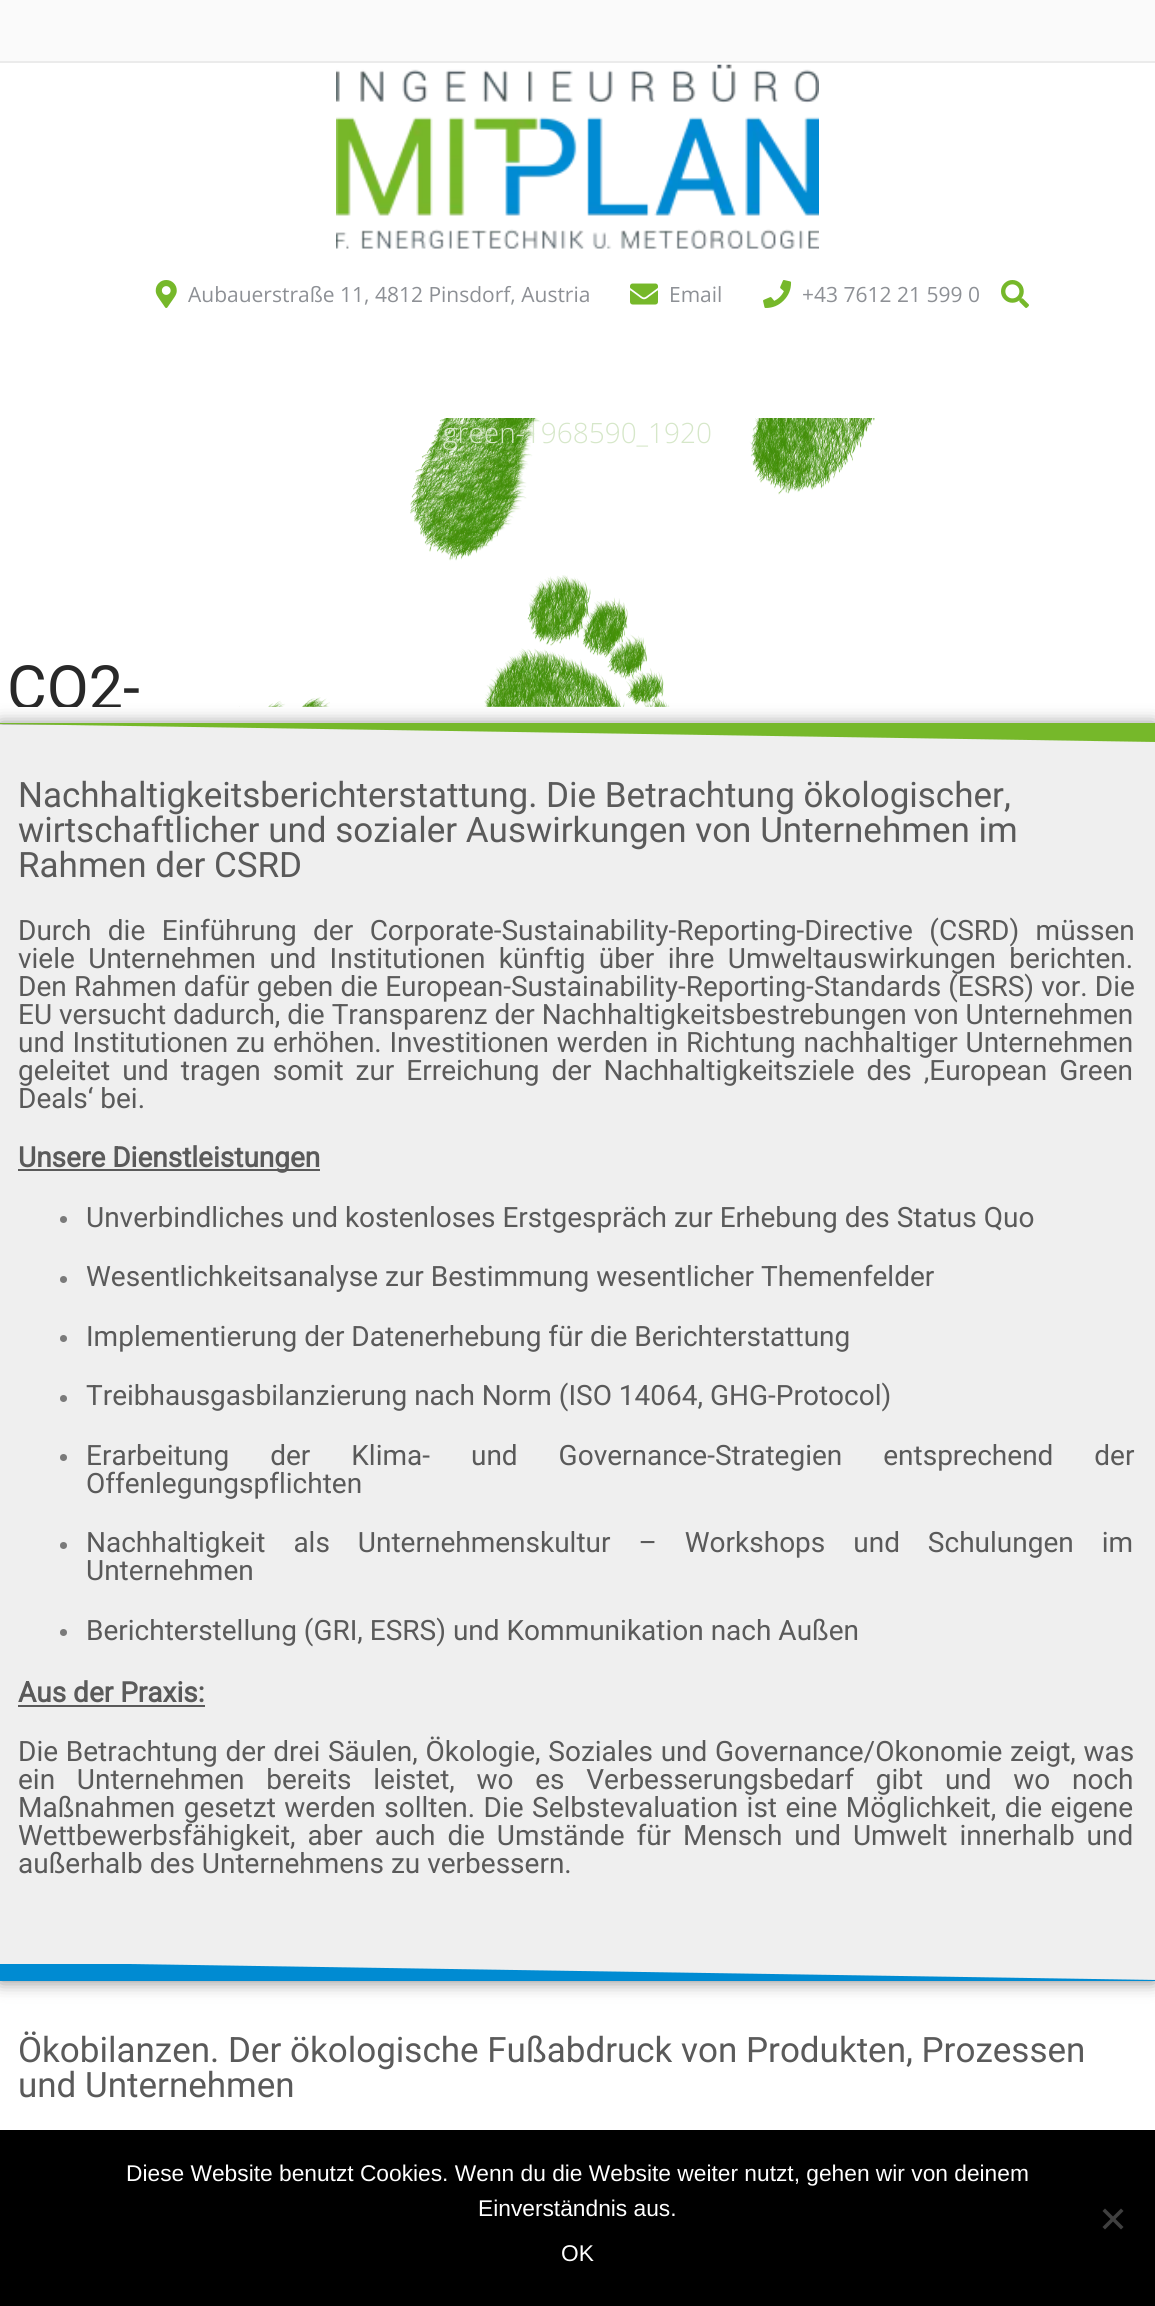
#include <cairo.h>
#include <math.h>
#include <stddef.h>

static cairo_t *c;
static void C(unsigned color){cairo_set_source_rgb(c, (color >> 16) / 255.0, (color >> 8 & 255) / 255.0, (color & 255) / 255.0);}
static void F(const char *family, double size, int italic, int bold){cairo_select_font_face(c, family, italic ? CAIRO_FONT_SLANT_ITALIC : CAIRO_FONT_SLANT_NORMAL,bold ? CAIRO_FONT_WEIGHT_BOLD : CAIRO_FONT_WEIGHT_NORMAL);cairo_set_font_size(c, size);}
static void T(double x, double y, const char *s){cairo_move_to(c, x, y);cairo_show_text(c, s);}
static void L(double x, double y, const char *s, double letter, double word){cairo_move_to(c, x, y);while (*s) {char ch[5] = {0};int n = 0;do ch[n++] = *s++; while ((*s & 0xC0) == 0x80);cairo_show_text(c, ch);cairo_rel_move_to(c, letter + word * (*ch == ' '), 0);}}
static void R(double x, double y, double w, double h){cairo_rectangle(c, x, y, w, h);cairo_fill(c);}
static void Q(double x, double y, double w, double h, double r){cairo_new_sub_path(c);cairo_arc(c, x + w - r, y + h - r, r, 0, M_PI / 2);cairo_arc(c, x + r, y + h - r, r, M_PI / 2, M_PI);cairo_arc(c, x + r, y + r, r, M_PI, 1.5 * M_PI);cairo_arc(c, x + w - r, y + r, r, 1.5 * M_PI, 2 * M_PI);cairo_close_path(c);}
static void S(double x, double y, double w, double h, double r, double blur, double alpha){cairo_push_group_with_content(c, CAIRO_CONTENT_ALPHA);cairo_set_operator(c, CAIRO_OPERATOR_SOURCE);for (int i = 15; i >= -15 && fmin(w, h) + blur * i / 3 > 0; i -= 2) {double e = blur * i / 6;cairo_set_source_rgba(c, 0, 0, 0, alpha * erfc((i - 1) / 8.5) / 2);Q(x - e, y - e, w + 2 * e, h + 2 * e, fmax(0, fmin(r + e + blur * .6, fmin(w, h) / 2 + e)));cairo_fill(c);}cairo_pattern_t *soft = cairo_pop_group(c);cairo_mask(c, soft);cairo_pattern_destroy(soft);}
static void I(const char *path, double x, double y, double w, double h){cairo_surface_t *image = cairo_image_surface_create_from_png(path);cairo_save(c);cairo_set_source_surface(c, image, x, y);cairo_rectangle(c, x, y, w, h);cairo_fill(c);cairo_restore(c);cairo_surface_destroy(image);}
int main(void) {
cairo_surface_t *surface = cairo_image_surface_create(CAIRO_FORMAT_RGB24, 1155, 2306);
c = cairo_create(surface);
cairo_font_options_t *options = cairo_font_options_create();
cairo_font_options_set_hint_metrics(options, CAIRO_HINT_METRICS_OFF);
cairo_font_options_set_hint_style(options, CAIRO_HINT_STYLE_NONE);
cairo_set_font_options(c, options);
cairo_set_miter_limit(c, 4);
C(0xffffff);
cairo_paint(c);
C(0xfafafa);
R(0,0,1155,61);
C(0xebebeb);
R(0,61,1155,2);
I("1.png",336,64,483,185);
I("2.png",155,280,22,28);
F("Open Sans",21,0,0);
C(0x8d9095);
T(188,302,"Aubauerstraße 11, 4812 Pinsdorf, Austria");
I("3.png",630,283,28,22);
T(669,302,"Email");
I("4.png",763,280,29,28);
T(802,302,"+43 7612 21 599 0");
I("5.png",1001,280,28,28);
I("6.png",239,418,636,289);
F("Open Sans Light",28,0,0);
C(0xd6e7c9);
T(443,443,"green-1968590_1920");
cairo_save(c);
cairo_rectangle(c,0,418,1155,289);
cairo_clip(c);
F("Roboto",61,0,0);
C(0x282828);
T(7,709,"CO2-");
cairo_restore(c);
C(0x000000);
S(0,725,1155,1256,0,9,.5);
C(0xefefef);
R(0,725,1155,1255);
C(0x76b82a);
cairo_new_path(c);
cairo_move_to(c,-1,724);
cairo_line_to(c,-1,723);
cairo_line_to(c,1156,723);
cairo_line_to(c,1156,742);
cairo_close_path(c);
cairo_fill(c);
F("Roboto",35,0,0);
C(0x5a5a5a);
T(18,807,"Nachhaltigkeitsberichterstattung. Die Betrachtung ökologischer,");
T(18,842,"wirtschaftlicher und sozialer Auswirkungen von Unternehmen im");
T(18,877,"Rahmen der CSRD");
F("Roboto",28,0,0);
L(18,940,"Durch die Einführung der Corporate-Sustainability-Reporting-Directive (CSRD) müssen",0,9.5);
L(18,968,"viele Unternehmen und Institutionen künftig über ihre Umweltauswirkungen berichten.",0,6.5);
L(18,996,"Den Rahmen dafür geben die European-Sustainability-Reporting-Standards (ESRS) vor. Die",0,.25);
T(18,1024,"EU versucht dadurch, die Transparenz der Nachhaltigkeitsbestrebungen von Unternehmen");
L(18,1052,"und Institutionen zu erhöhen. Investitionen werden in Richtung nachhaltiger Unternehmen",0,.75);
L(18,1080,"geleitet und tragen somit zur Erreichung der Nachhaltigkeitsziele des ‚European Green",0,5);
T(18,1108,"Deals‘ bei.");
R(18,1169,302,2);
F("Roboto",28,0,1);
T(18,1167,"Unsere Dienstleistungen");
C(0x7a7a7a);
cairo_new_path(c);
cairo_arc(c,63.5,1219.5,3.5,0,2 * M_PI);
cairo_fill(c);
F("Roboto",28,0,0);
C(0x5a5a5a);
T(86,1227,"Unverbindliches und kostenloses Erstgespräch zur Erhebung des Status Quo");
C(0x7a7a7a);
cairo_new_path(c);
cairo_arc(c,63.5,1279.5,3.5,0,2 * M_PI);
cairo_fill(c);
C(0x5a5a5a);
T(86,1286,"Wesentlichkeitsanalyse zur Bestimmung wesentlicher Themenfelder");
C(0x7a7a7a);
cairo_new_path(c);
cairo_arc(c,63.5,1338.5,3.5,0,2 * M_PI);
cairo_fill(c);
C(0x5a5a5a);
T(86,1346,"Implementierung der Datenerhebung für die Berichterstattung");
C(0x7a7a7a);
cairo_new_path(c);
cairo_arc(c,63.5,1398.5,3.5,0,2 * M_PI);
cairo_fill(c);
C(0x5a5a5a);
T(86,1405,"Treibhausgasbilanzierung nach Norm (ISO 14064, GHG-Protocol)");
C(0x7a7a7a);
cairo_new_path(c);
cairo_arc(c,63.5,1457.5,3.5,0,2 * M_PI);
cairo_fill(c);
C(0x5a5a5a);
L(86,1465,"Erarbeitung der Klima- und Governance-Strategien entsprechend der",0,34);
T(86,1493,"Offenlegungspflichten");
C(0x7a7a7a);
cairo_new_path(c);
cairo_arc(c,63.5,1545.5,3.5,0,2 * M_PI);
cairo_fill(c);
C(0x5a5a5a);
L(86,1552,"Nachhaltigkeit als Unternehmenskultur – Workshops und Schulungen im",0,21);
T(86,1580,"Unternehmen");
C(0x7a7a7a);
cairo_new_path(c);
cairo_arc(c,63.5,1632.5,3.5,0,2 * M_PI);
cairo_fill(c);
C(0x5a5a5a);
T(86,1640,"Berichterstellung (GRI, ESRS) und Kommunikation nach Außen");
F("Roboto",28,0,1);
T(18,1702,"Aus der Praxis:");
R(18,1705,187,2);
F("Roboto",28,0,0);
L(18,1761,"Die Betrachtung der drei Säulen, Ökologie, Soziales und Governance/Okonomie zeigt, was",0,.75);
L(18,1789,"ein Unternehmen bereits leistet, wo es Verbesserungsbedarf gibt und wo noch",0,14.75);
L(18,1817,"Maßnahmen gesetzt werden sollten. Die Selbstevaluation ist eine Möglichkeit, die eigene",0,1.5);
L(18,1845,"Wettbewerbsfähigkeit, aber auch die Umstände für Mensch und Umwelt innerhalb und",0,5);
T(18,1873,"außerhalb des Unternehmens zu verbessern.");
cairo_save(c);
cairo_rectangle(c,0,1964,1155,19);
cairo_clip(c);
C(0x008bd2);
cairo_new_path(c);
cairo_move_to(c,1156,1980);
cairo_line_to(c,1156,1981);
cairo_line_to(c,-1,1981);
cairo_line_to(c,-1,1962);
cairo_close_path(c);
cairo_fill(c);
cairo_restore(c);
F("Roboto",35,0,0);
T(18,2062,"Ökobilanzen. Der ökologische Fußabdruck von Produkten, Prozessen");
T(18,2097,"und Unternehmen");
C(0x000000);
R(0,2130,1155,176);
F("Liberation Sans",22.75,0,0);
C(0xffffff);
T(126,2181,"Diese Website benutzt Cookies. Wenn du die Website weiter nutzt, gehen wir von deinem");
T(478,2216,"Einverständnis aus.");
C(0x404040);
cairo_new_path(c);
cairo_move_to(c,1121,2208.5);
cairo_line_to(c,1123.5,2211);
cairo_line_to(c,1105,2229.5);
cairo_line_to(c,1102.5,2227);
cairo_close_path(c);
cairo_fill(c);
cairo_new_path(c);
cairo_move_to(c,1102.5,2211);
cairo_line_to(c,1105,2208.5);
cairo_line_to(c,1123.5,2227);
cairo_line_to(c,1121,2229.5);
cairo_close_path(c);
cairo_fill(c);
C(0xffffff);
T(561,2261,"OK");
cairo_surface_write_to_png(surface, "o.png");
cairo_font_options_destroy(options);
cairo_destroy(c);
cairo_surface_destroy(surface);
return 0;
}
